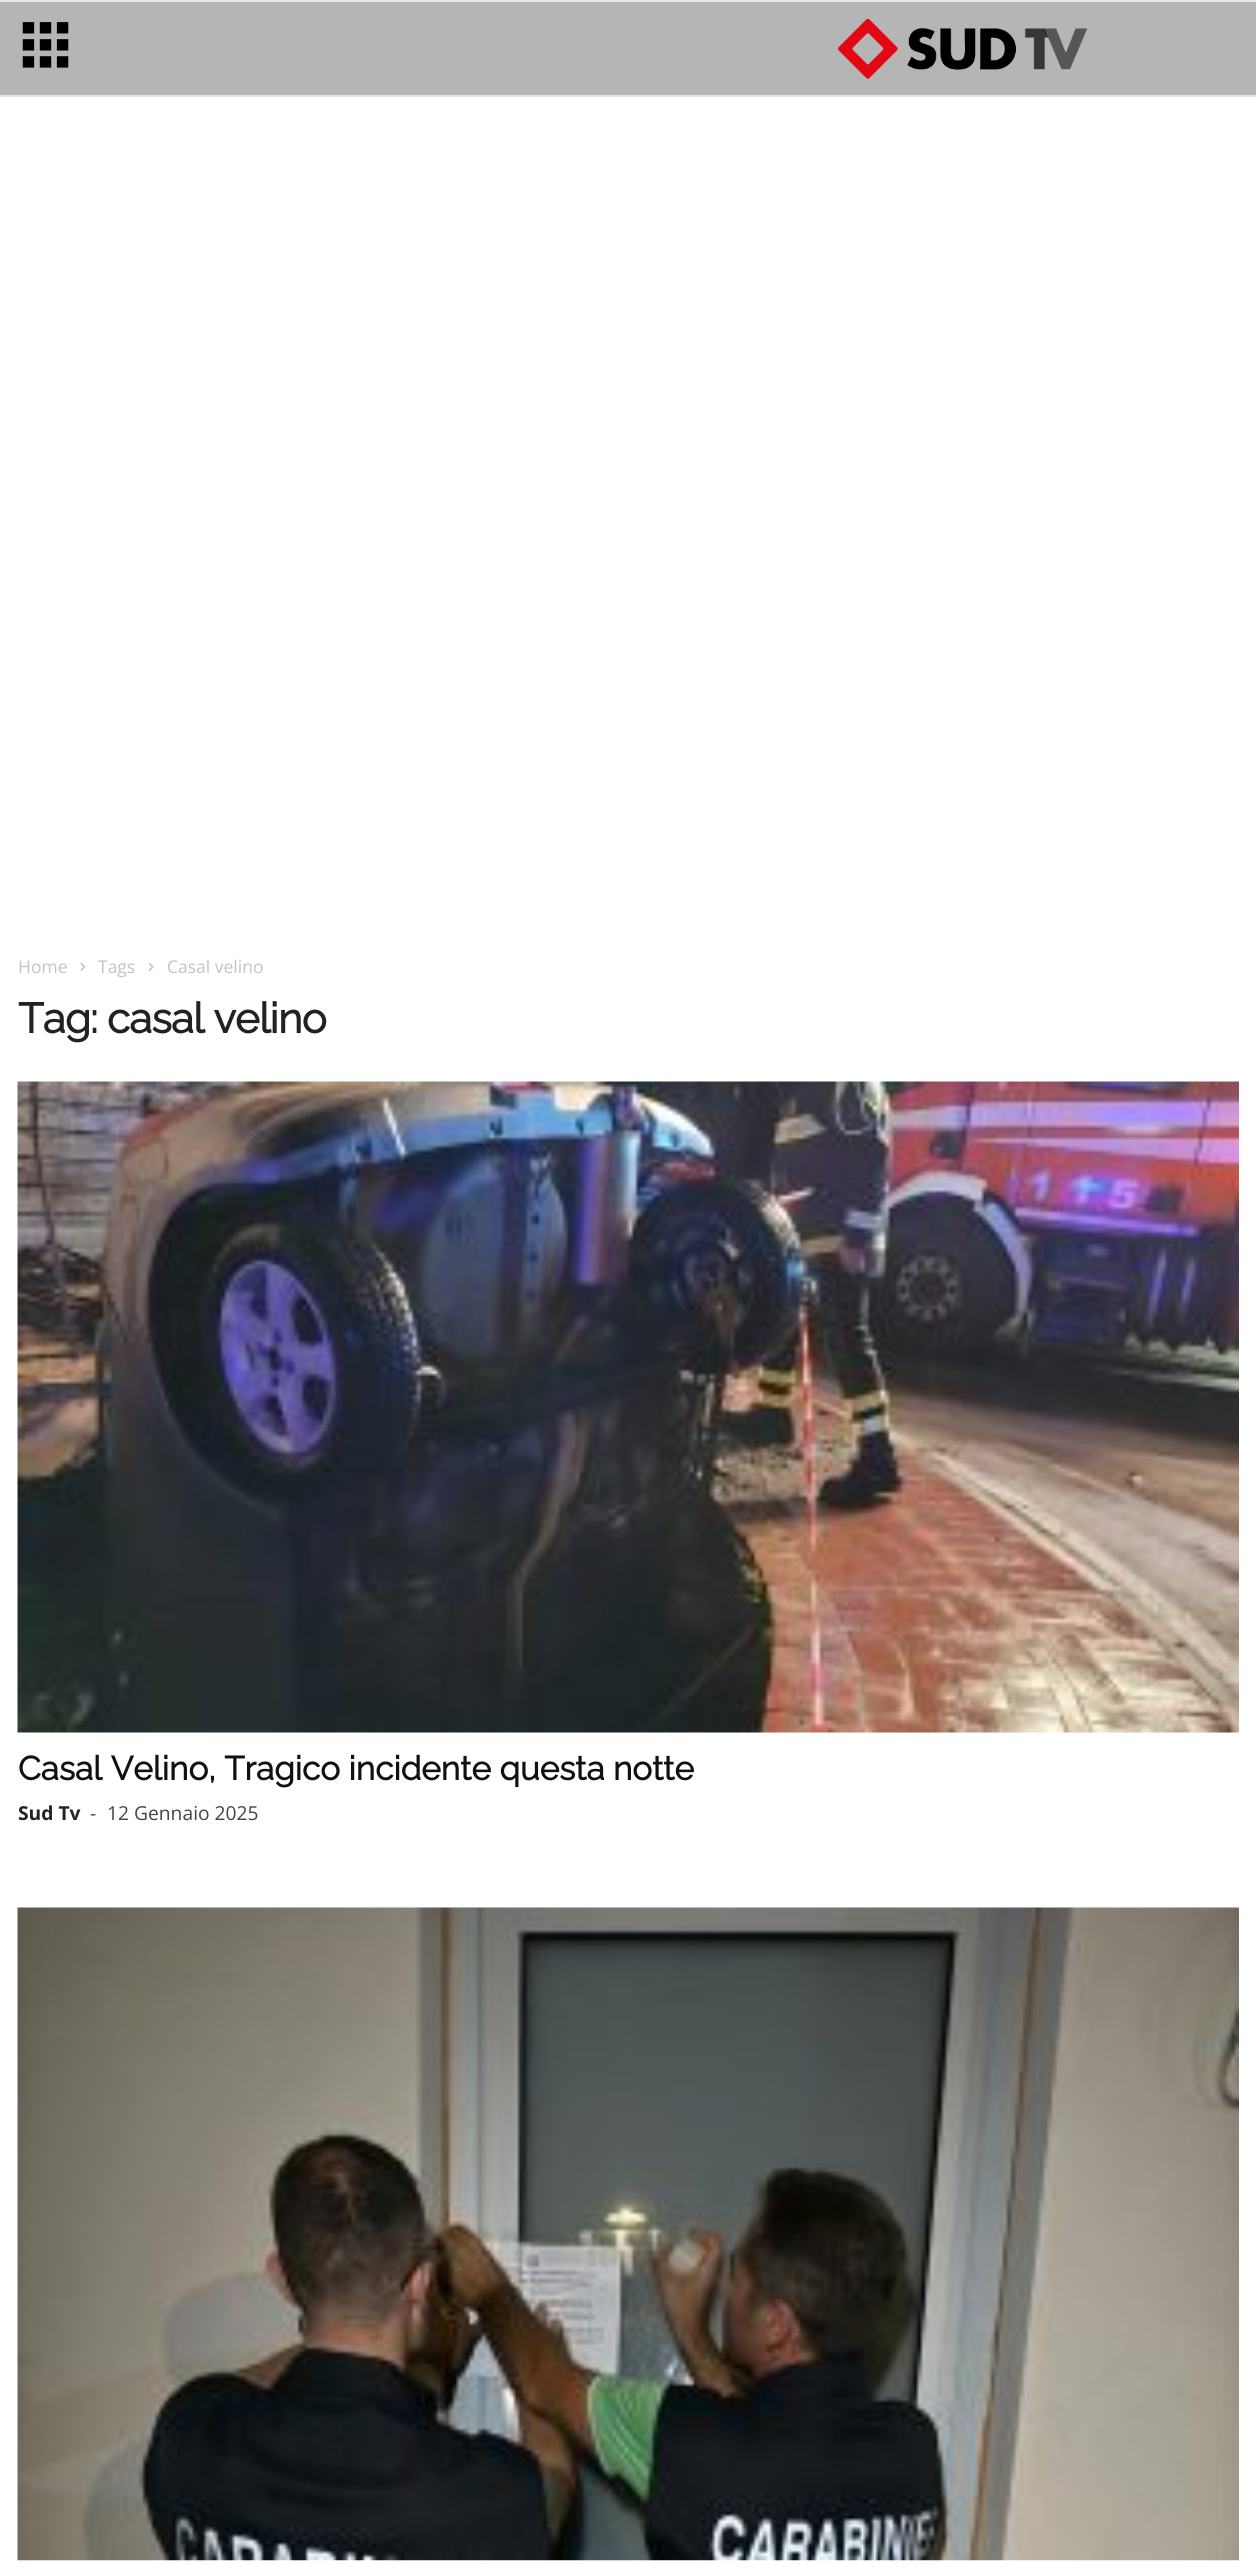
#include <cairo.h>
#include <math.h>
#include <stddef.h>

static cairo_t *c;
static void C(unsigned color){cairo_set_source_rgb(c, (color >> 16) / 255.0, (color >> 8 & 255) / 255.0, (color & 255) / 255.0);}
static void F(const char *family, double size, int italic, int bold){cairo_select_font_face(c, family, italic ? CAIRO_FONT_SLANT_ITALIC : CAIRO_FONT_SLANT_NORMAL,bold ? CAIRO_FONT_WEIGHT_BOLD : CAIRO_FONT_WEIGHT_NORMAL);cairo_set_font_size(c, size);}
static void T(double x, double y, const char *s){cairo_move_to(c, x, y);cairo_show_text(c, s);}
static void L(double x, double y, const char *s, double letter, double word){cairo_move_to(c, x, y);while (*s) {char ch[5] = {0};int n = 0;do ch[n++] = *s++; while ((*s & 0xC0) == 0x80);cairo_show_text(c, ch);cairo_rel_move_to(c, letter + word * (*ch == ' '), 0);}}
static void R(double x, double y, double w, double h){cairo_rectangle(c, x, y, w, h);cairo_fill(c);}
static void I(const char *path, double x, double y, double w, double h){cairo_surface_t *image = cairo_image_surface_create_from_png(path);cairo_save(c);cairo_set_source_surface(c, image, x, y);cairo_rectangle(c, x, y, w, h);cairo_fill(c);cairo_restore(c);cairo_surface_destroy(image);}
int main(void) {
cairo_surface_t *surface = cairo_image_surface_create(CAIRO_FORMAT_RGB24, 1256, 2570);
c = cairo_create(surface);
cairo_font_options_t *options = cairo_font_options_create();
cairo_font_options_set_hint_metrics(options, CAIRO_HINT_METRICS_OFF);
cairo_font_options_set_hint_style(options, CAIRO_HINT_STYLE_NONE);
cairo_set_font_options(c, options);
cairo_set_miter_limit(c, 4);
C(0xffffff);
cairo_paint(c);
C(0xb5b5b5);
R(0,2,1256,93);
C(0xe6e6e6);
R(0,0,1256,2);
R(0,95,1256,2);
I("1.png",22,22,47,46);
I("2.png",837,18,251,61);
F("Open Sans",17.5,0,0);
C(0xc3c3c3);
T(18,973,"Home");
I("3.png",80,962,6,9);
T(98,973,"Tags");
I("4.png",148,962,6,9);
T(167,973,"Casal velino");
F("Raleway",42,0,1);
C(0x222222);
L(18,1033,"Tag: casal velino",-.8,0);
I("5.png",17,1081,1222,652);
F("Raleway",33.25,0,1);
C(0x111111);
T(18,1780,"Casal Velino, Tragico incidente questa notte");
F("Open Sans",19.25,0,1);
C(0x222222);
T(18,1820,"Sud Tv");
F("Open Sans",19.25,0,0);
C(0x444444);
T(90,1820,"-");
T(107,1820,"12 Gennaio 2025");
I("6.png",17,1907,1222,654);
cairo_surface_write_to_png(surface, "o.png");
cairo_font_options_destroy(options);
cairo_destroy(c);
cairo_surface_destroy(surface);
return 0;
}
